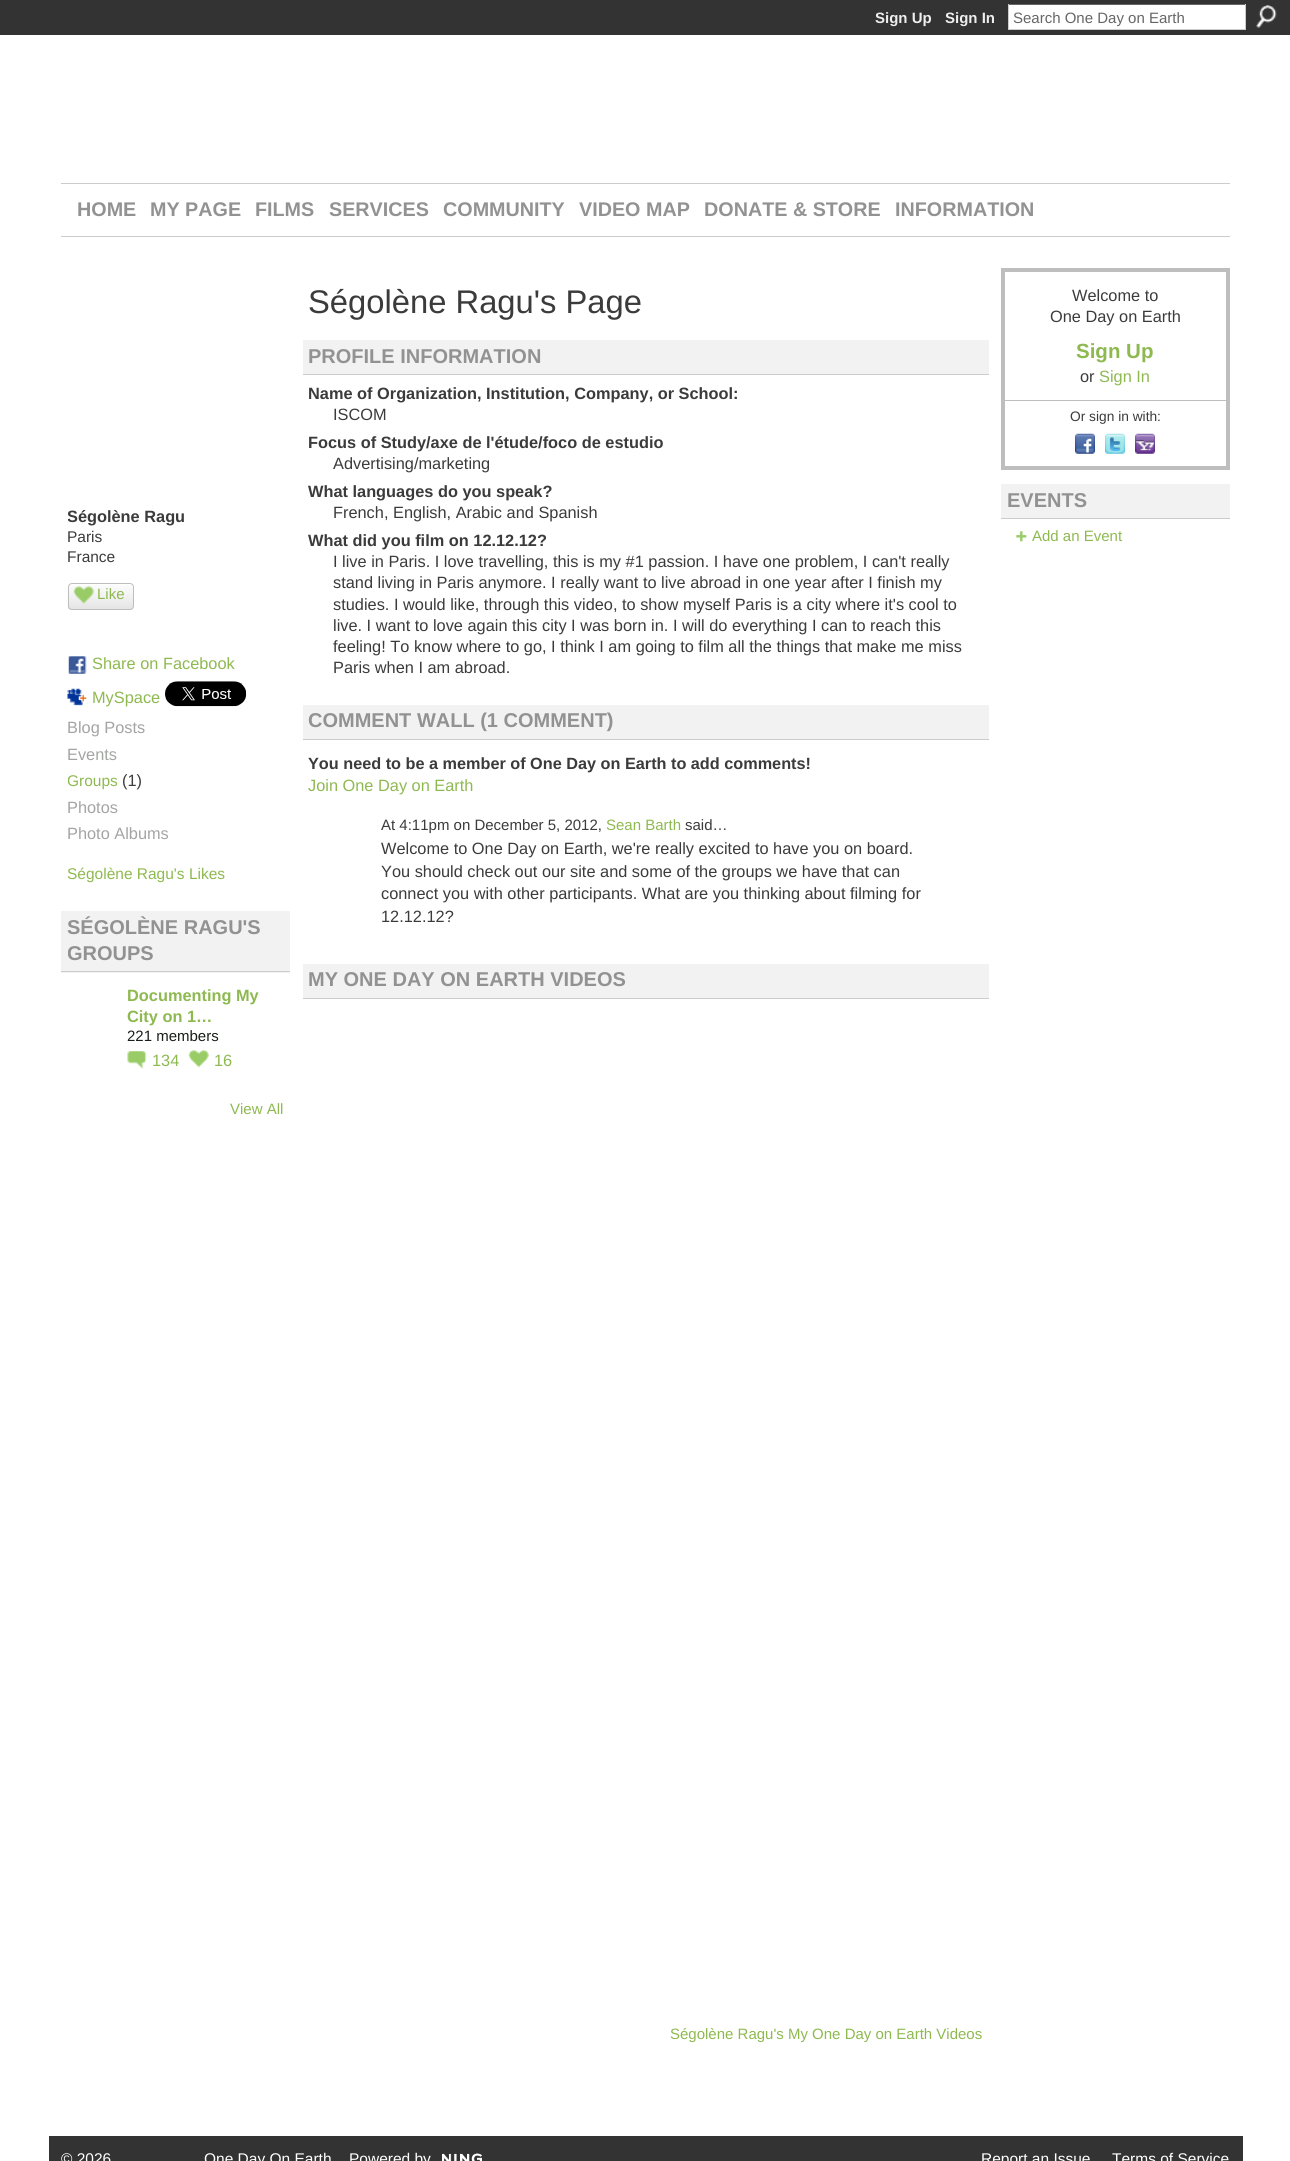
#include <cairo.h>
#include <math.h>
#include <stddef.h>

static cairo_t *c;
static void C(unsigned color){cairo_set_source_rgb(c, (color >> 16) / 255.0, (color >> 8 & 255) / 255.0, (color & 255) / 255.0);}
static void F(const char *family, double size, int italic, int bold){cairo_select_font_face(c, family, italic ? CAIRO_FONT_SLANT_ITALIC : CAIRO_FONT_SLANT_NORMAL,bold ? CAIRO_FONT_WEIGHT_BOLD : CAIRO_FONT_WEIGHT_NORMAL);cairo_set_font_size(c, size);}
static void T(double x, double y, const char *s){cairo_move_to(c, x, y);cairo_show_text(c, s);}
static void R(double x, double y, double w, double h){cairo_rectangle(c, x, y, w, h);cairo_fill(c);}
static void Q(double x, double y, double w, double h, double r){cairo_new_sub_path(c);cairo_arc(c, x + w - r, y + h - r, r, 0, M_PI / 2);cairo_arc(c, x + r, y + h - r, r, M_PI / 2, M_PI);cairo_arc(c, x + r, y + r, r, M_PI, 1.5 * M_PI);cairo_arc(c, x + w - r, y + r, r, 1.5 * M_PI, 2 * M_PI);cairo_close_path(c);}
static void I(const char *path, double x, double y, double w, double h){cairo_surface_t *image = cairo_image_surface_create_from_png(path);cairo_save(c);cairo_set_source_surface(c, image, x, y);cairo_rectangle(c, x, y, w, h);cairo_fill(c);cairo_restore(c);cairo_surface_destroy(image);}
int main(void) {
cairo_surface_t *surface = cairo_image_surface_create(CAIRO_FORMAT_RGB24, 1290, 2161);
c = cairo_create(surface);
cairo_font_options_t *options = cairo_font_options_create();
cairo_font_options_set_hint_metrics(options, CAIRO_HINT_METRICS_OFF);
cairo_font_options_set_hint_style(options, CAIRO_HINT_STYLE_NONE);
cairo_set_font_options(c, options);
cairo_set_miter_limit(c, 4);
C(0xffffff);
cairo_paint(c);
C(0x333333);
R(0,0,1290,35);
F("Liberation Sans",15,0,1);
C(0xeeeeee);
T(875,23,"Sign Up");
T(945,23,"Sign In");
C(0xffffff);
R(1009,5,236,24);
C(0x666666);
R(1008,4,238,1);
C(0xcccccc);
R(1245,4,1,26);
R(1008,29,238,1);
R(1008,4,1,26);
F("Liberation Sans",15,0,0);
C(0x666666);
T(1013,23,"Search One Day on Earth");
I("1.png",1256,5,21,23);
C(0xcccccc);
R(61,183,1169,1);
R(61,236,1169,1);
F("Liberation Sans",19.75,0,1);
C(0x929292);
T(77,216,"HOME");
T(150,216,"MY PAGE");
T(255,216,"FILMS");
T(329,216,"SERVICES");
T(443,216,"COMMUNITY");
T(579,216,"VIDEO MAP");
T(704,216,"DONATE & STORE");
T(895,216,"INFORMATION");
cairo_save(c);
cairo_rectangle(c,68,506,216,22);
cairo_clip(c);
F("Liberation Sans",16.35,0,1);
C(0x3b3b3b);
T(67,522,"Ségolène Ragu");
cairo_restore(c);
F("Liberation Sans",15.5,0,0);
C(0x3b3b3b);
T(67,542,"Paris");
T(67,562,"France");
I("2.png",67,585,67,25);
Q(68.5,583.5,65,26,3.5);
C(0xbebebe);
cairo_set_line_width(c,1);
cairo_stroke(c);
I("3.png",73,586,21,18);
F("Liberation Sans",15,0,0);
C(0x8eb950);
T(97,599,"Like");
I("4.png",68,656,19,18);
F("Liberation Sans",16.35,0,0);
T(92,669,"Share on Facebook");
I("5.png",67,688,20,18);
T(92,703,"MySpace");
I("6.png",165,681,82,26);
C(0xa3a5a3);
T(67,733,"Blog Posts");
T(67,760,"Events");
cairo_save(c);
cairo_rectangle(c,68,771,216,20);
cairo_clip(c);
F("Liberation Sans",15.5,0,0);
C(0x8eb950);
T(67,786,"Groups");
cairo_restore(c);
C(0x3b3b3b);
T(122,786,"(1)");
C(0xa3a5a3);
T(67,813,"Photos");
T(67,839,"Photo Albums");
F("Liberation Sans",15.5,0,0);
C(0x8eb950);
T(67,879,"Ségolène Ragu's Likes");
C(0xf2f2f2);
R(61,911,229,62);
C(0xcccccc);
R(61,971,229,1);
F("Liberation Sans",20,0,1);
C(0x929292);
T(67,934,"SÉGOLÈNE RAGU'S");
cairo_save(c);
cairo_rectangle(c,68,915,216,53);
cairo_clip(c);
T(67,960,"GROUPS");
cairo_restore(c);
F("Liberation Sans",16.35,0,1);
C(0x8eb950);
T(127,1001,"Documenting My");
T(127,1022,"City on 1…");
F("Liberation Sans",15,0,0);
C(0x191e19);
T(127,1041,"221 members");
I("7.png",127,1051,20,18);
F("Liberation Sans",16.35,0,0);
C(0x8eb950);
T(152,1066,"134");
I("8.png",188,1049,21,19);
T(214,1066,"16");
F("Liberation Sans",15,0,0);
T(230,1114,"View All");
F("Liberation Sans",32.75,0,0);
C(0x3b3b3b);
T(308,313,"Ségolène Ragu's Page");
C(0xf2f2f2);
R(303,340,686,34);
C(0xcccccc);
R(303,374,686,1);
F("Liberation Sans",20,0,1);
C(0x929292);
T(308,363,"PROFILE INFORMATION");
F("Liberation Sans",16.35,0,1);
C(0x3b3b3b);
T(308,399,"Name of Organization, Institution, Company, or School:");
F("Liberation Sans",16.35,0,0);
T(333,420,"ISCOM");
F("Liberation Sans",16.35,0,1);
T(308,448,"Focus of Study/axe de l'étude/foco de estudio");
F("Liberation Sans",16.35,0,0);
T(333,469,"Advertising/marketing");
F("Liberation Sans",16.35,0,1);
T(308,497,"What languages do you speak?");
F("Liberation Sans",16.35,0,0);
T(333,518,"French, English, Arabic and Spanish");
F("Liberation Sans",16.35,0,1);
T(308,546,"What did you film on 12.12.12?");
F("Liberation Sans",16.35,0,0);
T(333,567,"I live in Paris. I love travelling, this is my #1 passion. I have one problem, I can't really");
T(333,588,"stand living in Paris anymore. I really want to live abroad in one year after I finish my");
T(333,610,"studies. I would like, through this video, to show myself Paris is a city where it's cool to");
T(333,631,"live. I want to love again this city I was born in. I will do everything I can to reach this");
T(333,652,"feeling! To know where to go, I think I am going to film all the things that make me miss");
T(333,673,"Paris when I am abroad.");
C(0xf2f2f2);
R(303,705,686,34);
C(0xcccccc);
R(303,739,686,1);
F("Liberation Sans",20,0,1);
C(0x929292);
T(308,727,"COMMENT WALL (1 COMMENT)");
F("Liberation Sans",16.25,0,1);
C(0x3b3b3b);
T(308,769,"You need to be a member of One Day on Earth to add comments!");
F("Liberation Sans",16.35,0,0);
C(0x8eb950);
T(308,791,"Join One Day on Earth");
F("Liberation Sans",15,0,0);
C(0x3b3b3b);
T(381,830,"At 4:11pm on December 5, 2012,");
C(0x8eb950);
T(606,830,"Sean Barth");
C(0x3b3b3b);
T(685,830,"said…");
F("Liberation Sans",16.35,0,0);
T(381,854,"Welcome to One Day on Earth, we're really excited to have you on board.");
T(381,877,"You should check out our site and some of the groups we have that can");
T(381,899,"connect you with other participants. What are you thinking about filming for");
T(381,922,"12.12.12?");
C(0xf2f2f2);
R(303,964,686,34);
C(0xcccccc);
R(303,998,686,1);
F("Liberation Sans",20,0,1);
C(0x929292);
T(308,986,"MY ONE DAY ON EARTH VIDEOS");
F("Liberation Sans",15,0,0);
C(0x8eb950);
T(670,2039,"Ségolène Ragu's My One Day on Earth Videos");
cairo_rectangle(c,1003,270,225,198);
C(0xbebebe);
cairo_set_line_width(c,4);
cairo_stroke(c);
F("Liberation Sans",16.35,0,0);
C(0x3b3b3b);
T(1072,301,"Welcome to");
T(1050,322,"One Day on Earth");
F("Liberation Sans",20.5,0,1);
C(0x8eb950);
T(1076,358,"Sign Up");
F("Liberation Sans",16.35,0,0);
C(0x3b3b3b);
T(1080,382,"or");
C(0x8eb950);
T(1099,382,"Sign In");
C(0xbebebe);
R(1005,400,221,1);
F("Liberation Sans",13.75,0,0);
C(0x3b3b3b);
T(1070,421,"Or sign in with:");
I("9.png",1075,433,20,21);
I("10.png",1105,433,20,21);
I("11.png",1135,433,20,21);
C(0xf2f2f2);
R(1001,484,229,34);
C(0xcccccc);
R(1001,518,229,1);
F("Liberation Sans",20,0,1);
C(0x929292);
T(1007,507,"EVENTS");
I("12.png",1016,531,11,11);
F("Liberation Sans",15,0,0);
C(0x8eb950);
T(1032,541,"Add an Event");
C(0x333333);
R(49,2136,1194,25);
F("Liberation Sans",15.5,0,0);
C(0xffffff);
T(61,2164,"© 2026");
T(204,2164,"One Day On Earth");
T(349,2164,"Powered by");
I("13.png",442,2153,40,8);
T(981,2164,"Report an Issue");
T(1112,2164,"Terms of Service");
cairo_surface_write_to_png(surface, "o.png");
cairo_font_options_destroy(options);
cairo_destroy(c);
cairo_surface_destroy(surface);
return 0;
}
